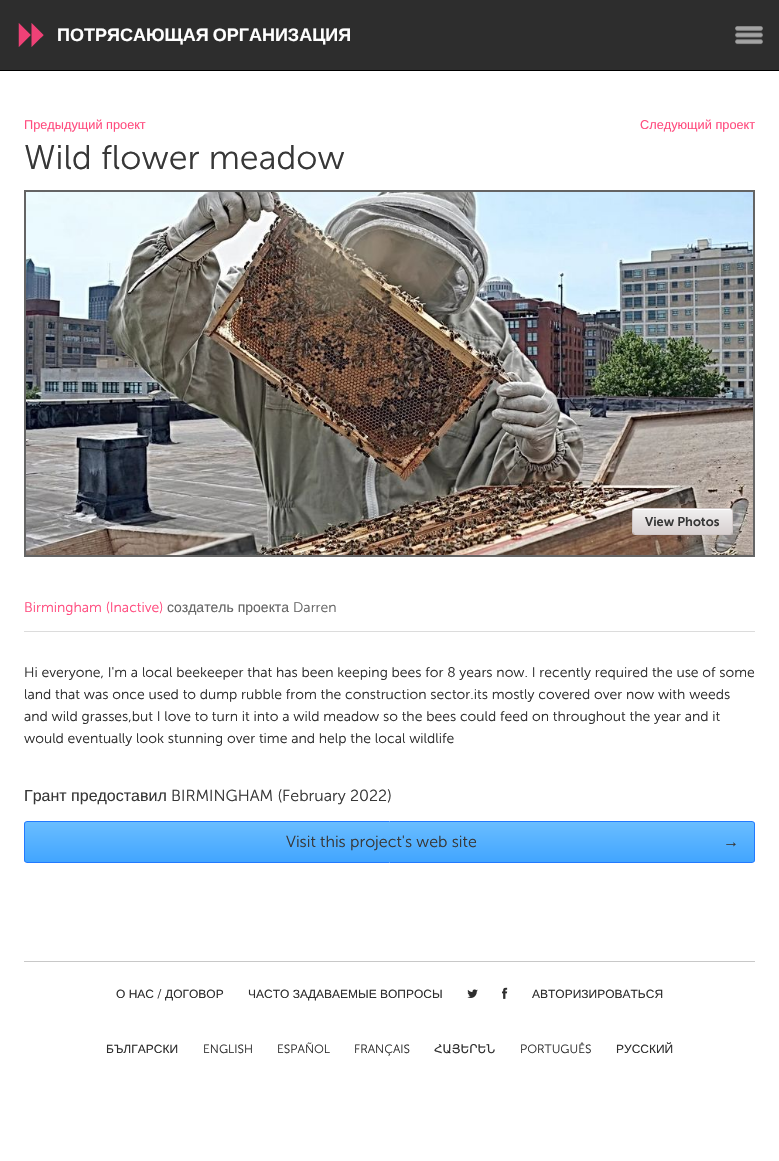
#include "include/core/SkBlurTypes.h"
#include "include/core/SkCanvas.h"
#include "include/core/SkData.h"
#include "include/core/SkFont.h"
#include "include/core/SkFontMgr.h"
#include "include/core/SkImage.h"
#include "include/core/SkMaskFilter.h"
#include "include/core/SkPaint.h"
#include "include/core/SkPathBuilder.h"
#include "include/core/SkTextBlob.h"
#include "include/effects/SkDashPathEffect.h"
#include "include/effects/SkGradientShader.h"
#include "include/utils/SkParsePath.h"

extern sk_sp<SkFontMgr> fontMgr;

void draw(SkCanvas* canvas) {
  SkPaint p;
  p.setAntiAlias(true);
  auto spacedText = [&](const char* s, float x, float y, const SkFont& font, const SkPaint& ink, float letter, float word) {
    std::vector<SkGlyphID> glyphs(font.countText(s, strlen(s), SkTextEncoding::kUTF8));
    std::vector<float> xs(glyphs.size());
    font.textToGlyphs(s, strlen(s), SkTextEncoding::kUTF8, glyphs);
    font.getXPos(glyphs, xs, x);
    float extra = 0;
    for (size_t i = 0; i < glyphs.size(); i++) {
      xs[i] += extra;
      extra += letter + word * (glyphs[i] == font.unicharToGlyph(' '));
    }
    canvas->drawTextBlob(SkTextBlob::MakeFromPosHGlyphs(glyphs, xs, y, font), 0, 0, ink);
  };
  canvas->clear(SK_ColorWHITE);
  p.setColor(SkColorSetRGB(45, 45, 45));
  canvas->drawRect(SkRect::MakeLTRB(0, 0, 779, 70), p);
  p.setColor(SK_ColorBLACK);
  canvas->drawRect(SkRect::MakeLTRB(0, 70, 779, 71), p);
  canvas->drawImageRect(SkImages::DeferredFromEncodedData(SkData::MakeFromFileName("images/1.png")), SkRect::MakeLTRB(18, 23, 44, 47), SkSamplingOptions());
  canvas->drawImageRect(SkImages::DeferredFromEncodedData(SkData::MakeFromFileName("images/2.png")), SkRect::MakeLTRB(735, 26, 763, 45), SkSamplingOptions());
  p.setColor(SkColorSetRGB(100, 100, 100));
  canvas->drawRect(SkRect::MakeLTRB(24, 190, 755, 557), p);
  canvas->drawImageRect(SkImages::DeferredFromEncodedData(SkData::MakeFromFileName("images/3.png")), SkRect::MakeLTRB(26, 192, 753, 555), SkSamplingOptions());
  {
    const SkColor colors[] = {SkColorSetRGB(240, 240, 240), SkColorSetRGB(216, 208, 208)};
    const float stops[] = {0, 1};
    const SkPoint ends[] = {{683, 509}, {683, 534}};
    p.setShader(SkGradientShader::MakeLinear(ends, colors, stops, 2, SkTileMode::kClamp));
    p.setAlpha(255);
  }
  canvas->drawRoundRect(SkRect::MakeLTRB(633, 509, 732, 534), 2, 2, p);
  p.setShader(nullptr);
  p.setColor(SK_ColorWHITE);
  canvas->drawPath(SkPathBuilder().moveTo(635, 510).lineTo(730, 510).cubicTo(731, 510, 732, 511, 732, 512).cubicTo(732, 511, 732, 509, 730, 509).lineTo(651, 509).cubicTo(649, 509, 633, 505, 633, 512).cubicTo(633, 511, 634, 510, 635, 510).close().detach(), p);
  p.setStyle(SkPaint::kStroke_Style);
  p.setStrokeWidth(1);
  p.setColor(SkColorSetRGB(209, 200, 200));
  canvas->drawRoundRect(SkRect::MakeLTRB(632.5f, 508.5f, 732.5f, 534.5f), 2.5f, 2.5f, p);
  p.setStyle(SkPaint::kFill_Style);
  p.setColor(SkColorSetRGB(220, 220, 220));
  canvas->drawRect(SkRect::MakeLTRB(24, 631, 755, 632), p);
  canvas->save();
  canvas->clipPath(SkPathBuilder().moveTo(27, 821).lineTo(752, 821).cubicTo(753.5f, 821, 755, 822.5f, 755, 824).lineTo(755, 860).cubicTo(755, 861.5f, 753.5f, 863, 752, 863).lineTo(27, 863).cubicTo(25.5f, 863, 24, 861.5f, 24, 860).lineTo(24, 824).cubicTo(24, 822.5f, 25.5f, 821, 27, 821).close().detach(), true);
  {
    const SkColor colors[] = {SkColorSetRGB(106, 189, 255), SkColorSetRGB(65, 165, 255)};
    const float stops[] = {0, 1};
    const SkPoint ends[] = {{390, 822}, {390, 862}};
    p.setShader(SkGradientShader::MakeLinear(ends, colors, stops, 2, SkTileMode::kClamp));
    p.setAlpha(255);
  }
  canvas->drawRect(SkRect::MakeLTRB(24, 822, 755, 862), p);
  canvas->restore();
  p.setStyle(SkPaint::kStroke_Style);
  p.setShader(nullptr);
  p.setColor(SkColorSetRGB(34, 122, 255));
  canvas->drawRoundRect(SkRect::MakeLTRB(24.5f, 821.5f, 754.5f, 862.5f), 2.5f, 2.5f, p);
  p.setStyle(SkPaint::kFill_Style);
  p.setColor(SkColorSetRGB(200, 200, 200));
  canvas->drawRect(SkRect::MakeLTRB(24, 961, 755, 962), p);
  canvas->drawImageRect(SkImages::DeferredFromEncodedData(SkData::MakeFromFileName("images/4.png")), SkRect::MakeLTRB(467, 989, 478, 998), SkSamplingOptions());
  canvas->drawImageRect(SkImages::DeferredFromEncodedData(SkData::MakeFromFileName("images/5.png")), SkRect::MakeLTRB(502, 987, 508, 999), SkSamplingOptions());
  SkFont font1(fontMgr->matchFamilyStyle("Liberation Sans", SkFontStyle::Bold()), 18);
  font1.setSubpixel(true);
  p.setColor(SK_ColorWHITE);
  spacedText("ПОТРЯСАЮЩАЯ ОРГАНИЗАЦИЯ", 57, 41, font1, p, 0, -1);
  SkFont font2(fontMgr->matchFamilyStyle("Liberation Sans", SkFontStyle::Normal()), 12.75f);
  font2.setSubpixel(true);
  p.setColor(SkColorSetRGB(255, 75, 126));
  canvas->drawString("Предыдущий проект", 24, 129, font2, p);
  canvas->drawString("Следующий проект", 640, 129, font2, p);
  SkFont font3(fontMgr->matchFamilyStyle("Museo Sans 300", SkFontStyle(300, SkFontStyle::kNormal_Width, SkFontStyle::kUpright_Slant)), 34);
  font3.setSubpixel(true);
  p.setColor(SkColorSetRGB(55, 55, 55));
  canvas->drawString("Wild flower meadow", 24, 169, font3, p);
  SkFont font4(fontMgr->matchFamilyStyle("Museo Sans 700", SkFontStyle(600, SkFontStyle::kNormal_Width, SkFontStyle::kUpright_Slant)), 12.75f);
  font4.setSubpixel(true);
  canvas->drawString("View Photos", 645, 526, font4, p);
  SkFont font5(fontMgr->matchFamilyStyle("Museo Sans 300", SkFontStyle(300, SkFontStyle::kNormal_Width, SkFontStyle::kUpright_Slant)), 14);
  font5.setSubpixel(true);
  p.setColor(SkColorSetRGB(255, 75, 126));
  canvas->drawString("Birmingham (Inactive)", 24, 612, font5, p);
  SkFont font6(fontMgr->matchFamilyStyle("Liberation Sans", SkFontStyle::Normal()), 14);
  font6.setSubpixel(true);
  p.setColor(SkColorSetRGB(100, 100, 100));
  canvas->drawString("создатель проекта", 167, 612, font6, p);
  canvas->drawString("Darren", 293, 612, font5, p);
  p.setColor(SkColorSetRGB(46, 46, 46));
  canvas->drawString("Hi everyone, I'm a local beekeeper that has been keeping bees for 8 years now. I recently required the use of some", 24, 677, font5, p);
  canvas->drawString("land that was once used to dump rubble from the construction sector.its mostly covered over now with weeds", 24, 699, font5, p);
  canvas->drawString("and wild grasses,but I love to turn it into a wild meadow so the bees could feed on throughout the year and it", 24, 721, font5, p);
  canvas->drawString("would eventually look stunning over time and help the local wildlife", 24, 743, font5, p);
  SkFont font7(fontMgr->matchFamilyStyle("Liberation Sans", SkFontStyle::Normal()), 16);
  font7.setSubpixel(true);
  p.setColor(SkColorSetRGB(55, 55, 55));
  canvas->drawString("Грант предоставил", 24, 801, font7, p);
  SkFont font8(fontMgr->matchFamilyStyle("Museo Sans 300", SkFontStyle(300, SkFontStyle::kNormal_Width, SkFontStyle::kUpright_Slant)), 16);
  font8.setSubpixel(true);
  canvas->drawString("BIRMINGHAM (February 2022)", 171, 801, font8, p);
  canvas->drawString("Visit this project's web site", 286, 847, font8, p);
  canvas->drawString("→", 723, 847, font7, p);
  SkFont font9(fontMgr->matchFamilyStyle("Liberation Sans", SkFontStyle::Normal()), 12);
  font9.setSubpixel(true);
  p.setColor(SkColorSetRGB(46, 46, 46));
  canvas->drawString("О НАС", 116, 998, font9, p);
  SkFont font10(fontMgr->matchFamilyStyle("Museo Sans 300", SkFontStyle(300, SkFontStyle::kNormal_Width, SkFontStyle::kUpright_Slant)), 12);
  font10.setSubpixel(true);
  canvas->drawString("/", 157, 998, font10, p);
  canvas->drawString("ДОГОВОР", 165, 998, font9, p);
  canvas->drawString("ЧАСТО ЗАДАВАЕМЫЕ ВОПРОСЫ", 248, 998, font9, p);
  canvas->drawString("АВТОРИЗИРОВАТЬСЯ", 532, 998, font9, p);
  canvas->drawString("БЪЛГАРСКИ", 106, 1053, font9, p);
  canvas->drawString("ENGLISH", 203, 1053, font10, p);
  canvas->drawString("ESPAÑOL", 277, 1053, font10, p);
  canvas->drawString("FRANÇAIS", 354, 1053, font10, p);
  SkFont font11(fontMgr->matchFamilyStyle("DejaVu Sans", SkFontStyle::Normal()), 12);
  font11.setSubpixel(true);
  canvas->drawString("ՀԱՅԵՐԵՆ", 434, 1053, font11, p);
  canvas->drawString("PORTUGUÊS", 520, 1053, font10, p);
  canvas->drawString("РУССКИЙ", 616, 1053, font9, p);
}
